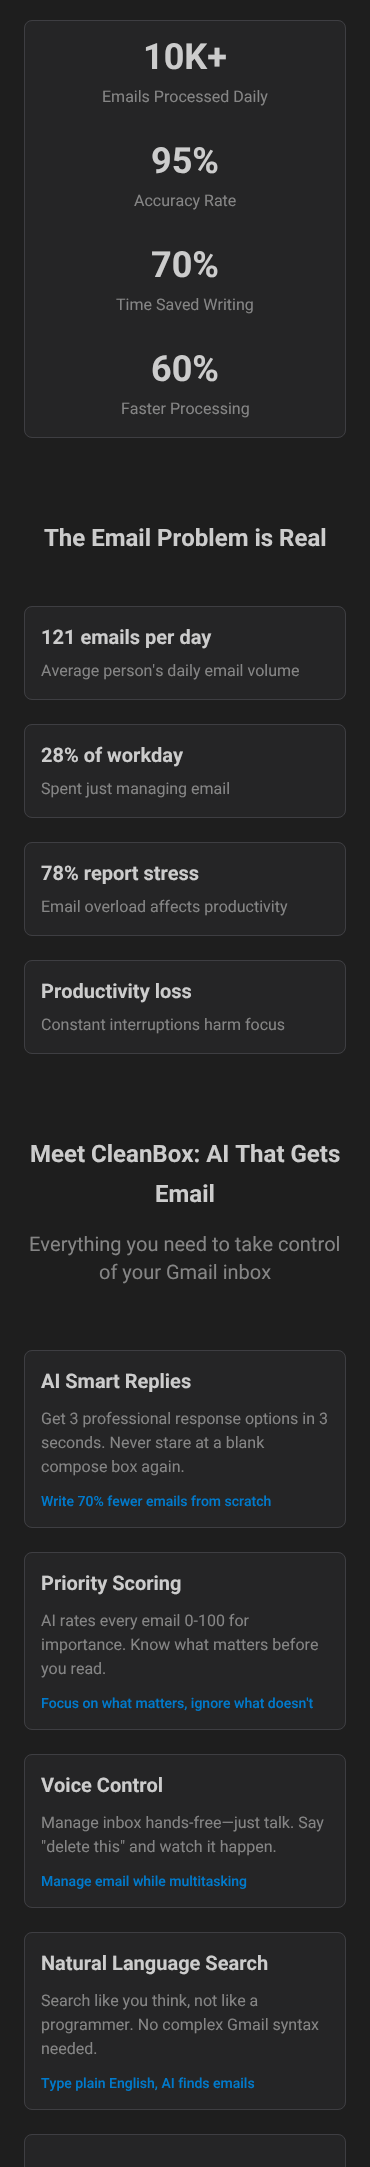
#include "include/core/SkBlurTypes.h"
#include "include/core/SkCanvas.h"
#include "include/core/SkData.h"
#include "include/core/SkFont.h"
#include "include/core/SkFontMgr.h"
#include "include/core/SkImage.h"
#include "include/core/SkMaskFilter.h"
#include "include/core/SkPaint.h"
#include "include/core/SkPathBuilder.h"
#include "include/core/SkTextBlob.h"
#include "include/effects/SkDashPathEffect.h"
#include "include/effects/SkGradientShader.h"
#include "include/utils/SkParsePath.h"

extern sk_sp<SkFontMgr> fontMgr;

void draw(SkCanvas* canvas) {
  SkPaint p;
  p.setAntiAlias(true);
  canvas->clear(SkColorSetRGB(30, 30, 30));
  p.setColor(SkColorSetRGB(37, 37, 38));
  canvas->drawRoundRect(SkRect::MakeLTRB(24.5f, 20.5f, 345.5f, 437.5f), 7.5f, 7.5f, p);
  p.setStyle(SkPaint::kStroke_Style);
  p.setStrokeWidth(1);
  p.setColor(SkColorSetRGB(62, 62, 66));
  canvas->drawRoundRect(SkRect::MakeLTRB(24.5f, 20.5f, 345.5f, 437.5f), 7.5f, 7.5f, p);
  p.setStyle(SkPaint::kFill_Style);
  p.setColor(SkColorSetRGB(37, 37, 38));
  canvas->drawRoundRect(SkRect::MakeLTRB(24.5f, 606.5f, 345.5f, 699.5f), 7.5f, 7.5f, p);
  p.setStyle(SkPaint::kStroke_Style);
  p.setColor(SkColorSetRGB(62, 62, 66));
  canvas->drawRoundRect(SkRect::MakeLTRB(24.5f, 606.5f, 345.5f, 699.5f), 7.5f, 7.5f, p);
  p.setStyle(SkPaint::kFill_Style);
  p.setColor(SkColorSetRGB(37, 37, 38));
  canvas->drawRoundRect(SkRect::MakeLTRB(24.5f, 724.5f, 345.5f, 817.5f), 7.5f, 7.5f, p);
  p.setStyle(SkPaint::kStroke_Style);
  p.setColor(SkColorSetRGB(62, 62, 66));
  canvas->drawRoundRect(SkRect::MakeLTRB(24.5f, 724.5f, 345.5f, 817.5f), 7.5f, 7.5f, p);
  p.setStyle(SkPaint::kFill_Style);
  p.setColor(SkColorSetRGB(37, 37, 38));
  canvas->drawRoundRect(SkRect::MakeLTRB(24.5f, 842.5f, 345.5f, 935.5f), 7.5f, 7.5f, p);
  p.setStyle(SkPaint::kStroke_Style);
  p.setColor(SkColorSetRGB(62, 62, 66));
  canvas->drawRoundRect(SkRect::MakeLTRB(24.5f, 842.5f, 345.5f, 935.5f), 7.5f, 7.5f, p);
  p.setStyle(SkPaint::kFill_Style);
  p.setColor(SkColorSetRGB(37, 37, 38));
  canvas->drawRoundRect(SkRect::MakeLTRB(24.5f, 960.5f, 345.5f, 1053.5f), 7.5f, 7.5f, p);
  p.setStyle(SkPaint::kStroke_Style);
  p.setColor(SkColorSetRGB(62, 62, 66));
  canvas->drawRoundRect(SkRect::MakeLTRB(24.5f, 960.5f, 345.5f, 1053.5f), 7.5f, 7.5f, p);
  p.setStyle(SkPaint::kFill_Style);
  p.setColor(SkColorSetRGB(37, 37, 38));
  canvas->drawRoundRect(SkRect::MakeLTRB(24.5f, 1350.5f, 345.5f, 1527.5f), 7.5f, 7.5f, p);
  p.setStyle(SkPaint::kStroke_Style);
  p.setColor(SkColorSetRGB(62, 62, 66));
  canvas->drawRoundRect(SkRect::MakeLTRB(24.5f, 1350.5f, 345.5f, 1527.5f), 7.5f, 7.5f, p);
  p.setStyle(SkPaint::kFill_Style);
  p.setColor(SkColorSetRGB(37, 37, 38));
  canvas->drawRoundRect(SkRect::MakeLTRB(24.5f, 1552.5f, 345.5f, 1729.5f), 7.5f, 7.5f, p);
  p.setStyle(SkPaint::kStroke_Style);
  p.setColor(SkColorSetRGB(62, 62, 66));
  canvas->drawRoundRect(SkRect::MakeLTRB(24.5f, 1552.5f, 345.5f, 1729.5f), 7.5f, 7.5f, p);
  p.setStyle(SkPaint::kFill_Style);
  p.setColor(SkColorSetRGB(37, 37, 38));
  canvas->drawRoundRect(SkRect::MakeLTRB(24.5f, 1754.5f, 345.5f, 1907.5f), 7.5f, 7.5f, p);
  p.setStyle(SkPaint::kStroke_Style);
  p.setColor(SkColorSetRGB(62, 62, 66));
  canvas->drawRoundRect(SkRect::MakeLTRB(24.5f, 1754.5f, 345.5f, 1907.5f), 7.5f, 7.5f, p);
  p.setStyle(SkPaint::kFill_Style);
  p.setColor(SkColorSetRGB(37, 37, 38));
  canvas->drawRoundRect(SkRect::MakeLTRB(24.5f, 1932.5f, 345.5f, 2109.5f), 7.5f, 7.5f, p);
  p.setStyle(SkPaint::kStroke_Style);
  p.setColor(SkColorSetRGB(62, 62, 66));
  canvas->drawRoundRect(SkRect::MakeLTRB(24.5f, 1932.5f, 345.5f, 2109.5f), 7.5f, 7.5f, p);
  p.setStyle(SkPaint::kFill_Style);
  p.setColor(SkColorSetRGB(37, 37, 38));
  canvas->drawRoundRect(SkRect::MakeLTRB(24.5f, 2134.5f, 345.5f, 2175.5f), 7.5f, 7.5f, p);
  p.setStyle(SkPaint::kStroke_Style);
  p.setColor(SkColorSetRGB(62, 62, 66));
  canvas->drawRoundRect(SkRect::MakeLTRB(24.5f, 2134.5f, 345.5f, 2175.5f), 7.5f, 7.5f, p);
  SkFont font1(fontMgr->matchFamilyStyle("Roboto", SkFontStyle::Bold()), 36);
  font1.setSubpixel(true);
  p.setStyle(SkPaint::kFill_Style);
  p.setColor(SkColorSetRGB(204, 204, 204));
  canvas->drawString("10K+", 143, 69, font1, p);
  SkFont font2(fontMgr->matchFamilyStyle("Roboto", SkFontStyle::Normal()), 16);
  font2.setSubpixel(true);
  p.setColor(SkColorSetRGB(133, 133, 133));
  canvas->drawString("Emails Processed Daily", 102, 102, font2, p);
  p.setColor(SkColorSetRGB(204, 204, 204));
  canvas->drawString("95%", 151, 173, font1, p);
  p.setColor(SkColorSetRGB(133, 133, 133));
  canvas->drawString("Accuracy Rate", 134, 206, font2, p);
  p.setColor(SkColorSetRGB(204, 204, 204));
  canvas->drawString("70%", 151, 277, font1, p);
  p.setColor(SkColorSetRGB(133, 133, 133));
  canvas->drawString("Time Saved Writing", 116, 310, font2, p);
  p.setColor(SkColorSetRGB(204, 204, 204));
  canvas->drawString("60%", 151, 381, font1, p);
  p.setColor(SkColorSetRGB(133, 133, 133));
  canvas->drawString("Faster Processing", 121, 414, font2, p);
  SkFont font3(fontMgr->matchFamilyStyle("Roboto", SkFontStyle::Bold()), 24);
  font3.setSubpixel(true);
  p.setColor(SkColorSetRGB(204, 204, 204));
  canvas->drawString("The Email Problem is Real", 44, 546, font3, p);
  SkFont font4(fontMgr->matchFamilyStyle("Roboto", SkFontStyle::Bold()), 20);
  font4.setSubpixel(true);
  canvas->drawString("121 emails per day", 41, 644, font4, p);
  p.setColor(SkColorSetRGB(133, 133, 133));
  canvas->drawString("Average person's daily email volume", 41, 676, font2, p);
  p.setColor(SkColorSetRGB(204, 204, 204));
  canvas->drawString("28% of workday", 41, 762, font4, p);
  p.setColor(SkColorSetRGB(133, 133, 133));
  canvas->drawString("Spent just managing email", 41, 794, font2, p);
  p.setColor(SkColorSetRGB(204, 204, 204));
  canvas->drawString("78% report stress", 41, 880, font4, p);
  p.setColor(SkColorSetRGB(133, 133, 133));
  canvas->drawString("Email overload affects productivity", 41, 912, font2, p);
  p.setColor(SkColorSetRGB(204, 204, 204));
  canvas->drawString("Productivity loss", 41, 998, font4, p);
  p.setColor(SkColorSetRGB(133, 133, 133));
  canvas->drawString("Constant interruptions harm focus", 41, 1030, font2, p);
  p.setColor(SkColorSetRGB(204, 204, 204));
  canvas->drawString("Meet CleanBox: AI That Gets", 30, 1162, font3, p);
  canvas->drawString("Email", 155, 1202, font3, p);
  SkFont font5(fontMgr->matchFamilyStyle("Roboto", SkFontStyle::Normal()), 20);
  font5.setSubpixel(true);
  p.setColor(SkColorSetRGB(133, 133, 133));
  canvas->drawString("Everything you need to take control", 29, 1251, font5, p);
  canvas->drawString("of your Gmail inbox", 99, 1279, font5, p);
  p.setColor(SkColorSetRGB(204, 204, 204));
  canvas->drawString("AI Smart Replies", 41, 1388, font4, p);
  p.setColor(SkColorSetRGB(133, 133, 133));
  canvas->drawString("Get 3 professional response options in 3", 41, 1424, font2, p);
  canvas->drawString("seconds. Never stare at a blank", 41, 1448, font2, p);
  canvas->drawString("compose box again.", 41, 1472, font2, p);
  SkFont font6(fontMgr->matchFamilyStyle("Roboto", SkFontStyle(500, SkFontStyle::kNormal_Width, SkFontStyle::kUpright_Slant)), 14);
  font6.setSubpixel(true);
  p.setColor(SkColorSetRGB(0, 122, 204));
  canvas->drawString("Write 70% fewer emails from scratch", 41, 1506, font6, p);
  p.setColor(SkColorSetRGB(204, 204, 204));
  canvas->drawString("Priority Scoring", 41, 1590, font4, p);
  p.setColor(SkColorSetRGB(133, 133, 133));
  canvas->drawString("AI rates every email 0-100 for", 41, 1626, font2, p);
  canvas->drawString("importance. Know what matters before", 41, 1650, font2, p);
  canvas->drawString("you read.", 41, 1674, font2, p);
  p.setColor(SkColorSetRGB(0, 122, 204));
  canvas->drawString("Focus on what matters, ignore what doesn't", 41, 1708, font6, p);
  p.setColor(SkColorSetRGB(204, 204, 204));
  canvas->drawString("Voice Control", 41, 1792, font4, p);
  p.setColor(SkColorSetRGB(133, 133, 133));
  canvas->drawString("Manage inbox hands-free—just talk. Say", 41, 1828, font2, p);
  canvas->drawString("\"delete this\" and watch it happen.", 41, 1852, font2, p);
  p.setColor(SkColorSetRGB(0, 122, 204));
  canvas->drawString("Manage email while multitasking", 41, 1886, font6, p);
  p.setColor(SkColorSetRGB(204, 204, 204));
  canvas->drawString("Natural Language Search", 41, 1970, font4, p);
  p.setColor(SkColorSetRGB(133, 133, 133));
  canvas->drawString("Search like you think, not like a", 41, 2006, font2, p);
  canvas->drawString("programmer. No complex Gmail syntax", 41, 2030, font2, p);
  canvas->drawString("needed.", 41, 2054, font2, p);
  p.setColor(SkColorSetRGB(0, 122, 204));
  canvas->drawString("Type plain English, AI finds emails", 41, 2088, font6, p);
}
